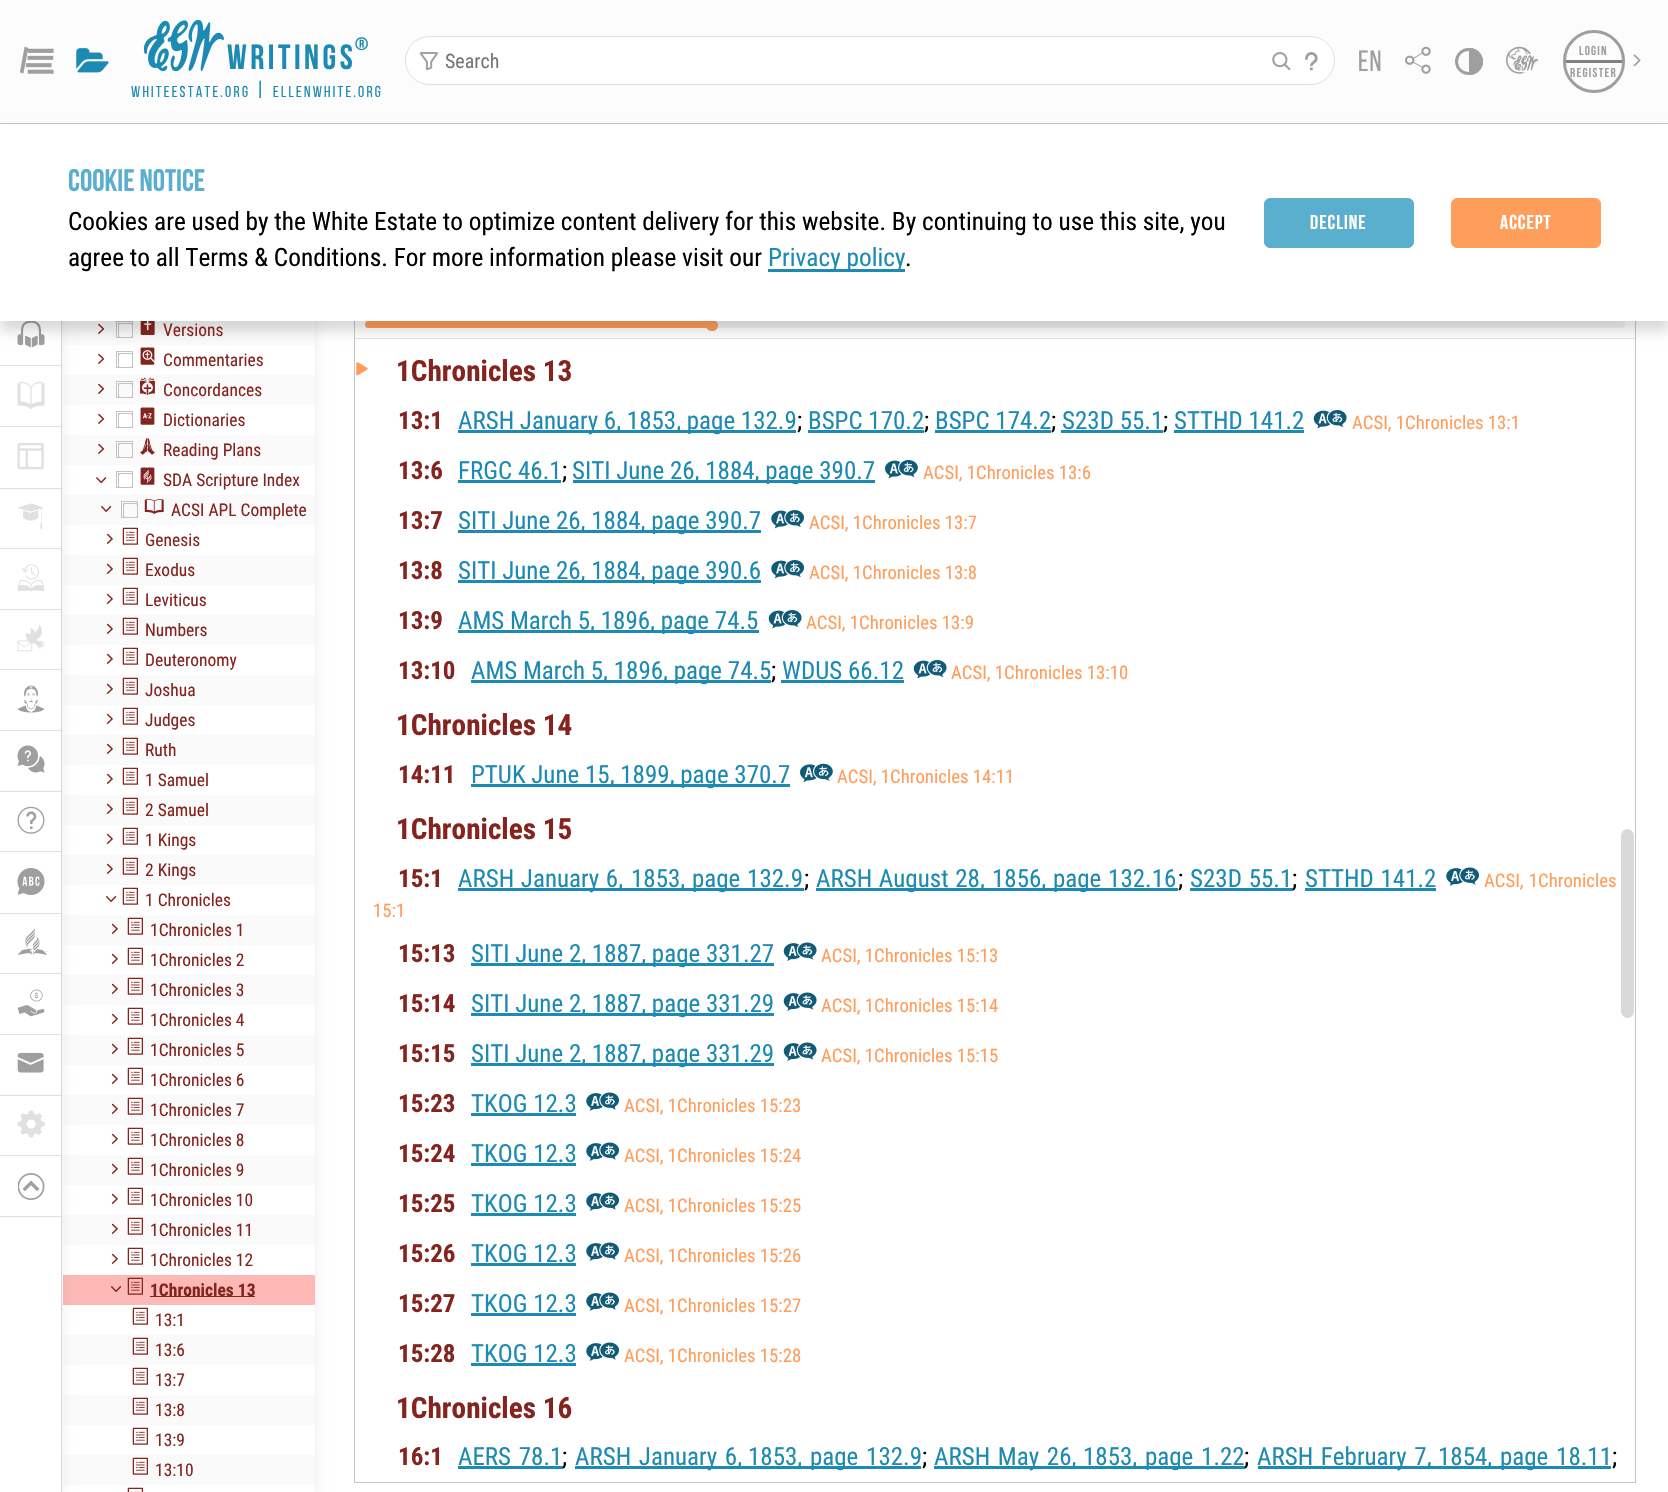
#include "include/core/SkBlurTypes.h"
#include "include/core/SkCanvas.h"
#include "include/core/SkData.h"
#include "include/core/SkFont.h"
#include "include/core/SkFontMgr.h"
#include "include/core/SkImage.h"
#include "include/core/SkMaskFilter.h"
#include "include/core/SkPaint.h"
#include "include/core/SkPathBuilder.h"
#include "include/core/SkTextBlob.h"
#include "include/effects/SkDashPathEffect.h"
#include "include/effects/SkGradientShader.h"
#include "include/utils/SkParsePath.h"

extern sk_sp<SkFontMgr> fontMgr;

void draw(SkCanvas* canvas) {
  SkPaint p;
  p.setAntiAlias(true);
  auto spacedText = [&](const char* s, float x, float y, const SkFont& font, const SkPaint& ink, float letter, float word) {
    std::vector<SkGlyphID> glyphs(font.countText(s, strlen(s), SkTextEncoding::kUTF8));
    std::vector<float> xs(glyphs.size());
    font.textToGlyphs(s, strlen(s), SkTextEncoding::kUTF8, glyphs);
    font.getXPos(glyphs, xs, x);
    float extra = 0;
    for (size_t i = 0; i < glyphs.size(); i++) {
      xs[i] += extra;
      extra += letter + word * (glyphs[i] == font.unicharToGlyph(' '));
    }
    canvas->drawTextBlob(SkTextBlob::MakeFromPosHGlyphs(glyphs, xs, y, font), 0, 0, ink);
  };
  canvas->clear(SK_ColorWHITE);
  p.setColor(SkColorSetARGB(20, 0, 0, 0));
  p.setMaskFilter(SkMaskFilter::MakeBlur(kNormal_SkBlurStyle, 6));
  canvas->drawRect(SkRect::MakeLTRB(61, 126, 315, 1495), p);
  p.setMaskFilter(nullptr);
  p.setColor(SK_ColorWHITE);
  canvas->drawRect(SkRect::MakeLTRB(62, 321, 315, 1492), p);
  p.setColor(SkColorSetRGB(224, 224, 224));
  canvas->drawRect(SkRect::MakeLTRB(61, 321, 62, 1492), p);
  p.setColor(SkColorSetRGB(250, 250, 250));
  canvas->drawRect(SkRect::MakeLTRB(63, 321, 315, 345), p);
  canvas->drawRect(SkRect::MakeLTRB(63, 375, 315, 405), p);
  canvas->drawRect(SkRect::MakeLTRB(63, 435, 315, 465), p);
  canvas->drawRect(SkRect::MakeLTRB(63, 495, 315, 525), p);
  canvas->drawRect(SkRect::MakeLTRB(63, 555, 315, 585), p);
  canvas->drawRect(SkRect::MakeLTRB(63, 615, 315, 645), p);
  canvas->drawRect(SkRect::MakeLTRB(63, 675, 315, 705), p);
  canvas->drawRect(SkRect::MakeLTRB(63, 735, 315, 765), p);
  canvas->drawRect(SkRect::MakeLTRB(63, 795, 315, 825), p);
  canvas->drawRect(SkRect::MakeLTRB(63, 855, 315, 885), p);
  canvas->drawRect(SkRect::MakeLTRB(63, 915, 315, 945), p);
  canvas->drawRect(SkRect::MakeLTRB(63, 975, 315, 1005), p);
  canvas->drawRect(SkRect::MakeLTRB(63, 1035, 315, 1065), p);
  canvas->drawRect(SkRect::MakeLTRB(63, 1095, 315, 1125), p);
  canvas->drawRect(SkRect::MakeLTRB(63, 1155, 315, 1185), p);
  canvas->drawRect(SkRect::MakeLTRB(63, 1215, 315, 1245), p);
  p.setColor(SkColorSetRGB(252, 185, 181));
  canvas->drawRect(SkRect::MakeLTRB(63, 1275, 315, 1305), p);
  p.setColor(SkColorSetRGB(250, 250, 250));
  canvas->drawRect(SkRect::MakeLTRB(63, 1335, 315, 1365), p);
  canvas->drawRect(SkRect::MakeLTRB(63, 1395, 315, 1425), p);
  canvas->drawRect(SkRect::MakeLTRB(63, 1455, 315, 1485), p);
  p.setColor(SkColorSetARGB(20, 0, 0, 0));
  p.setMaskFilter(SkMaskFilter::MakeBlur(kNormal_SkBlurStyle, 6));
  canvas->drawRect(SkRect::MakeLTRB(0, 126, 61, 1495), p);
  p.setMaskFilter(nullptr);
  p.setColor(SkColorSetRGB(252, 252, 252));
  canvas->drawRect(SkRect::MakeLTRB(0, 0, 1668, 123), p);
  p.setColor(SkColorSetRGB(196, 196, 196));
  canvas->drawRect(SkRect::MakeLTRB(0, 123, 1668, 124), p);
  canvas->drawImageRect(SkImages::DeferredFromEncodedData(SkData::MakeFromFileName("images/1.png")), SkRect::MakeLTRB(19, 46, 54, 74), SkSamplingOptions());
  canvas->drawImageRect(SkImages::DeferredFromEncodedData(SkData::MakeFromFileName("images/2.png")), SkRect::MakeLTRB(76, 48, 109, 73), SkSamplingOptions());
  canvas->drawImageRect(SkImages::DeferredFromEncodedData(SkData::MakeFromFileName("images/3.png")), SkRect::MakeLTRB(144, 20, 224, 71), SkSamplingOptions());
  p.setColor(SK_ColorWHITE);
  canvas->drawRoundRect(SkRect::MakeLTRB(405.5f, 36.5f, 1334.5f, 84.5f), 24, 24, p);
  p.setStyle(SkPaint::kStroke_Style);
  p.setStrokeWidth(1);
  p.setColor(SkColorSetRGB(224, 224, 224));
  canvas->drawRoundRect(SkRect::MakeLTRB(405.5f, 36.5f, 1334.5f, 84.5f), 24, 24, p);
  canvas->drawImageRect(SkImages::DeferredFromEncodedData(SkData::MakeFromFileName("images/4.png")), SkRect::MakeLTRB(419, 52, 438, 71), SkSamplingOptions());
  canvas->drawImageRect(SkImages::DeferredFromEncodedData(SkData::MakeFromFileName("images/5.png")), SkRect::MakeLTRB(1272, 52, 1291, 71), SkSamplingOptions());
  canvas->drawImageRect(SkImages::DeferredFromEncodedData(SkData::MakeFromFileName("images/6.png")), SkRect::MakeLTRB(1305, 52, 1318, 71), SkSamplingOptions());
  canvas->drawImageRect(SkImages::DeferredFromEncodedData(SkData::MakeFromFileName("images/7.png")), SkRect::MakeLTRB(1405, 46, 1431, 74), SkSamplingOptions());
  p.setStrokeWidth(3);
  p.setColor(SkColorSetRGB(159, 159, 159));
  canvas->drawRoundRect(SkRect::MakeLTRB(1456.5f, 49.5f, 1481.5f, 73.5f), 12, 12, p);
  p.setStyle(SkPaint::kFill_Style);
  canvas->drawPath(SkPathBuilder().moveTo(1469, 48).lineTo(1469.5f, 48).cubicTo(1477, 48, 1483, 54, 1483, 61.5f).cubicTo(1483, 69, 1477, 75, 1469.5f, 75).lineTo(1469, 75).close().detach(), p);
  canvas->drawImageRect(SkImages::DeferredFromEncodedData(SkData::MakeFromFileName("images/8.png")), SkRect::MakeLTRB(1506, 46, 1538, 74), SkSamplingOptions());
  p.setColor(SkColorSetRGB(128, 128, 128));
  canvas->drawRect(SkRect::MakeLTRB(1565, 60, 1623, 63), p);
  p.setStyle(SkPaint::kStroke_Style);
  p.setColor(SkColorSetRGB(159, 159, 159));
  canvas->drawRoundRect(SkRect::MakeLTRB(1564.5f, 31.5f, 1623.5f, 91.5f), 29.5f, 29.5f, p);
  canvas->drawImageRect(SkImages::DeferredFromEncodedData(SkData::MakeFromFileName("images/9.png")), SkRect::MakeLTRB(1633, 54, 1641, 67), SkSamplingOptions());
  p.setStyle(SkPaint::kFill_Style);
  p.setColor(SK_ColorWHITE);
  canvas->drawRect(SkRect::MakeLTRB(0, 321, 61, 1492), p);
  canvas->drawImageRect(SkImages::DeferredFromEncodedData(SkData::MakeFromFileName("images/10.png")), SkRect::MakeLTRB(17, 321, 45, 348), SkSamplingOptions());
  canvas->drawImageRect(SkImages::DeferredFromEncodedData(SkData::MakeFromFileName("images/25.png")), SkRect::MakeLTRB(98, 323, 105, 334), SkSamplingOptions());
  p.setStyle(SkPaint::kStroke_Style);
  p.setStrokeWidth(1);
  p.setColor(SkColorSetRGB(196, 196, 196));
  canvas->drawRect(SkRect::MakeLTRB(118.5f, 323.5f, 132.5f, 337.5f), p);
  canvas->drawRect(SkRect::MakeLTRB(116.5f, 321.5f, 132.5f, 337.5f), p);
  canvas->drawRoundRect(SkRect::MakeLTRB(118.5f, 323.5f, 132.5f, 337.5f), 2, 2, p);
  canvas->drawImageRect(SkImages::DeferredFromEncodedData(SkData::MakeFromFileName("images/26.png")), SkRect::MakeLTRB(140, 321, 155, 335), SkSamplingOptions());
  canvas->drawImageRect(SkImages::DeferredFromEncodedData(SkData::MakeFromFileName("images/28.png")), SkRect::MakeLTRB(140, 347, 155, 365), SkSamplingOptions());
  p.setStyle(SkPaint::kFill_Style);
  p.setColor(SkColorSetRGB(224, 224, 224));
  canvas->drawRect(SkRect::MakeLTRB(354, 338, 1636, 339), p);
  p.setColor(SkColorSetRGB(241, 241, 241));
  canvas->drawRoundRect(SkRect::MakeLTRB(365, 321, 1625, 328), 3.5f, 3.5f, p);
  p.setColor(SkColorSetRGB(255, 157, 91));
  canvas->drawRoundRect(SkRect::MakeLTRB(365, 321, 711, 328), 3.5f, 3.5f, p);
  canvas->drawRoundRect(SkRect::MakeLTRB(706, 320, 718, 331), 5.5f, 5.5f, p);
  canvas->drawImageRect(SkImages::DeferredFromEncodedData(SkData::MakeFromFileName("images/44.png")), SkRect::MakeLTRB(356, 362, 368, 376), SkSamplingOptions());
  p.setColor(SkColorSetRGB(28, 138, 179));
  canvas->drawRect(SkRect::MakeLTRB(458, 430, 796, 433), p);
  canvas->drawRect(SkRect::MakeLTRB(808, 430, 924, 433), p);
  canvas->drawRect(SkRect::MakeLTRB(935, 430, 1051, 433), p);
  canvas->drawRect(SkRect::MakeLTRB(1061, 430, 1163, 433), p);
  canvas->drawRect(SkRect::MakeLTRB(1174, 430, 1304, 433), p);
  canvas->drawImageRect(SkImages::DeferredFromEncodedData(SkData::MakeFromFileName("images/45.png")), SkRect::MakeLTRB(1313, 410, 1347, 429), SkSamplingOptions());
  canvas->drawRect(SkRect::MakeLTRB(458, 480, 561, 483), p);
  canvas->drawRect(SkRect::MakeLTRB(573, 480, 875, 483), p);
  canvas->drawImageRect(SkImages::DeferredFromEncodedData(SkData::MakeFromFileName("images/46.png")), SkRect::MakeLTRB(885, 460, 918, 479), SkSamplingOptions());
  canvas->drawRect(SkRect::MakeLTRB(458, 530, 761, 533), p);
  canvas->drawImageRect(SkImages::DeferredFromEncodedData(SkData::MakeFromFileName("images/47.png")), SkRect::MakeLTRB(771, 510, 805, 529), SkSamplingOptions());
  canvas->drawRect(SkRect::MakeLTRB(458, 580, 761, 583), p);
  canvas->drawImageRect(SkImages::DeferredFromEncodedData(SkData::MakeFromFileName("images/47.png")), SkRect::MakeLTRB(771, 560, 805, 579), SkSamplingOptions());
  canvas->drawRect(SkRect::MakeLTRB(458, 630, 759, 633), p);
  canvas->drawImageRect(SkImages::DeferredFromEncodedData(SkData::MakeFromFileName("images/45.png")), SkRect::MakeLTRB(768, 610, 802, 629), SkSamplingOptions());
  canvas->drawRect(SkRect::MakeLTRB(471, 680, 771, 683), p);
  canvas->drawRect(SkRect::MakeLTRB(781, 680, 904, 683), p);
  canvas->drawImageRect(SkImages::DeferredFromEncodedData(SkData::MakeFromFileName("images/45.png")), SkRect::MakeLTRB(913, 660, 947, 679), SkSamplingOptions());
  canvas->drawRect(SkRect::MakeLTRB(471, 784, 790, 787), p);
  canvas->drawImageRect(SkImages::DeferredFromEncodedData(SkData::MakeFromFileName("images/48.png")), SkRect::MakeLTRB(800, 763, 833, 782), SkSamplingOptions());
  canvas->drawRect(SkRect::MakeLTRB(458, 888, 804, 891), p);
  canvas->drawRect(SkRect::MakeLTRB(816, 888, 1178, 891), p);
  canvas->drawRect(SkRect::MakeLTRB(1190, 888, 1293, 891), p);
  canvas->drawRect(SkRect::MakeLTRB(1305, 888, 1436, 891), p);
  canvas->drawImageRect(SkImages::DeferredFromEncodedData(SkData::MakeFromFileName("images/49.png")), SkRect::MakeLTRB(1446, 867, 1480, 886), SkSamplingOptions());
  canvas->drawRect(SkRect::MakeLTRB(471, 963, 774, 966), p);
  canvas->drawImageRect(SkImages::DeferredFromEncodedData(SkData::MakeFromFileName("images/50.png")), SkRect::MakeLTRB(783, 942, 817, 961), SkSamplingOptions());
  canvas->drawRect(SkRect::MakeLTRB(471, 1013, 774, 1016), p);
  canvas->drawImageRect(SkImages::DeferredFromEncodedData(SkData::MakeFromFileName("images/50.png")), SkRect::MakeLTRB(783, 992, 817, 1011), SkSamplingOptions());
  canvas->drawRect(SkRect::MakeLTRB(471, 1063, 774, 1066), p);
  canvas->drawImageRect(SkImages::DeferredFromEncodedData(SkData::MakeFromFileName("images/50.png")), SkRect::MakeLTRB(783, 1042, 817, 1061), SkSamplingOptions());
  canvas->drawRect(SkRect::MakeLTRB(471, 1113, 576, 1116), p);
  canvas->drawImageRect(SkImages::DeferredFromEncodedData(SkData::MakeFromFileName("images/49.png")), SkRect::MakeLTRB(586, 1092, 620, 1111), SkSamplingOptions());
  canvas->drawRect(SkRect::MakeLTRB(471, 1163, 576, 1166), p);
  canvas->drawImageRect(SkImages::DeferredFromEncodedData(SkData::MakeFromFileName("images/49.png")), SkRect::MakeLTRB(586, 1142, 620, 1161), SkSamplingOptions());
  canvas->drawRect(SkRect::MakeLTRB(471, 1213, 576, 1216), p);
  canvas->drawImageRect(SkImages::DeferredFromEncodedData(SkData::MakeFromFileName("images/49.png")), SkRect::MakeLTRB(586, 1192, 620, 1211), SkSamplingOptions());
  canvas->drawRect(SkRect::MakeLTRB(471, 1263, 576, 1266), p);
  canvas->drawImageRect(SkImages::DeferredFromEncodedData(SkData::MakeFromFileName("images/49.png")), SkRect::MakeLTRB(586, 1242, 620, 1261), SkSamplingOptions());
  canvas->drawRect(SkRect::MakeLTRB(471, 1313, 576, 1316), p);
  canvas->drawImageRect(SkImages::DeferredFromEncodedData(SkData::MakeFromFileName("images/49.png")), SkRect::MakeLTRB(586, 1292, 620, 1311), SkSamplingOptions());
  canvas->drawRect(SkRect::MakeLTRB(471, 1363, 576, 1366), p);
  canvas->drawImageRect(SkImages::DeferredFromEncodedData(SkData::MakeFromFileName("images/49.png")), SkRect::MakeLTRB(586, 1342, 620, 1361), SkSamplingOptions());
  canvas->drawRect(SkRect::MakeLTRB(458, 1466, 563, 1469), p);
  canvas->drawRect(SkRect::MakeLTRB(575, 1466, 921, 1469), p);
  canvas->drawRect(SkRect::MakeLTRB(934, 1466, 1245, 1469), p);
  canvas->drawRect(SkRect::MakeLTRB(1258, 1466, 1611, 1469), p);
  p.setColor(SkColorSetRGB(217, 217, 217));
  canvas->drawRoundRect(SkRect::MakeLTRB(1621, 829, 1634, 1018), 6.5f, 6.5f, p);
  p.setStyle(SkPaint::kStroke_Style);
  p.setColor(SkColorSetRGB(196, 196, 196));
  canvas->drawRect(SkRect::MakeLTRB(354.5f, 224.5f, 1635.5f, 1482.5f), p);
  p.setStyle(SkPaint::kFill_Style);
  p.setColor(SkColorSetARGB(38, 0, 0, 0));
  p.setMaskFilter(SkMaskFilter::MakeBlur(kNormal_SkBlurStyle, 6));
  canvas->drawRect(SkRect::MakeLTRB(0, 134, 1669, 331), p);
  p.setMaskFilter(nullptr);
  p.setColor(SK_ColorWHITE);
  canvas->drawRect(SkRect::MakeLTRB(0, 124, 1668, 321), p);
  p.setColor(SkColorSetRGB(28, 138, 179));
  canvas->drawRect(SkRect::MakeLTRB(768, 269, 905, 272), p);
  p.setColor(SkColorSetRGB(90, 174, 206));
  canvas->drawRoundRect(SkRect::MakeLTRB(1264.5f, 198.5f, 1413.5f, 247.5f), 5.5f, 5.5f, p);
  p.setStyle(SkPaint::kStroke_Style);
  canvas->drawRoundRect(SkRect::MakeLTRB(1264.5f, 198.5f, 1413.5f, 247.5f), 5.5f, 5.5f, p);
  p.setStyle(SkPaint::kFill_Style);
  p.setColor(SkColorSetRGB(255, 157, 91));
  canvas->drawRoundRect(SkRect::MakeLTRB(1451.5f, 198.5f, 1600.5f, 247.5f), 5.5f, 5.5f, p);
  p.setStyle(SkPaint::kStroke_Style);
  canvas->drawRoundRect(SkRect::MakeLTRB(1451.5f, 198.5f, 1600.5f, 247.5f), 5.5f, 5.5f, p);
  p.setStyle(SkPaint::kFill_Style);
  p.setColor(SkColorSetRGB(224, 224, 224));
  canvas->drawRect(SkRect::MakeLTRB(0, 365, 61, 366), p);
  canvas->drawRect(SkRect::MakeLTRB(0, 426, 61, 427), p);
  canvas->drawImageRect(SkImages::DeferredFromEncodedData(SkData::MakeFromFileName("images/11.png")), SkRect::MakeLTRB(17, 381, 45, 409), SkSamplingOptions());
  canvas->drawRect(SkRect::MakeLTRB(0, 488, 61, 489), p);
  canvas->drawImageRect(SkImages::DeferredFromEncodedData(SkData::MakeFromFileName("images/12.png")), SkRect::MakeLTRB(17, 443, 44, 470), SkSamplingOptions());
  canvas->drawRect(SkRect::MakeLTRB(0, 548, 61, 549), p);
  canvas->drawImageRect(SkImages::DeferredFromEncodedData(SkData::MakeFromFileName("images/13.png")), SkRect::MakeLTRB(18, 503, 44, 529), SkSamplingOptions());
  canvas->drawRect(SkRect::MakeLTRB(0, 609, 61, 610), p);
  canvas->drawImageRect(SkImages::DeferredFromEncodedData(SkData::MakeFromFileName("images/14.png")), SkRect::MakeLTRB(17, 564, 45, 592), SkSamplingOptions());
  canvas->drawRect(SkRect::MakeLTRB(0, 669, 61, 670), p);
  canvas->drawImageRect(SkImages::DeferredFromEncodedData(SkData::MakeFromFileName("images/15.png")), SkRect::MakeLTRB(17, 624, 45, 652), SkSamplingOptions());
  canvas->drawRect(SkRect::MakeLTRB(0, 730, 61, 731), p);
  canvas->drawImageRect(SkImages::DeferredFromEncodedData(SkData::MakeFromFileName("images/16.png")), SkRect::MakeLTRB(17, 685, 45, 713), SkSamplingOptions());
  canvas->drawRect(SkRect::MakeLTRB(0, 791, 61, 792), p);
  canvas->drawImageRect(SkImages::DeferredFromEncodedData(SkData::MakeFromFileName("images/17.png")), SkRect::MakeLTRB(17, 745, 45, 773), SkSamplingOptions());
  canvas->drawRect(SkRect::MakeLTRB(0, 851, 61, 852), p);
  canvas->drawImageRect(SkImages::DeferredFromEncodedData(SkData::MakeFromFileName("images/18.png")), SkRect::MakeLTRB(17, 806, 45, 834), SkSamplingOptions());
  canvas->drawRect(SkRect::MakeLTRB(0, 913, 61, 914), p);
  canvas->drawImageRect(SkImages::DeferredFromEncodedData(SkData::MakeFromFileName("images/19.png")), SkRect::MakeLTRB(17, 868, 45, 895), SkSamplingOptions());
  canvas->drawRect(SkRect::MakeLTRB(0, 973, 61, 974), p);
  canvas->drawImageRect(SkImages::DeferredFromEncodedData(SkData::MakeFromFileName("images/20.png")), SkRect::MakeLTRB(17, 928, 48, 955), SkSamplingOptions());
  canvas->drawRect(SkRect::MakeLTRB(0, 1034, 61, 1035), p);
  canvas->drawImageRect(SkImages::DeferredFromEncodedData(SkData::MakeFromFileName("images/21.png")), SkRect::MakeLTRB(17, 989, 45, 1017), SkSamplingOptions());
  canvas->drawRect(SkRect::MakeLTRB(0, 1095, 61, 1096), p);
  canvas->drawImageRect(SkImages::DeferredFromEncodedData(SkData::MakeFromFileName("images/22.png")), SkRect::MakeLTRB(17, 1052, 44, 1073), SkSamplingOptions());
  canvas->drawRect(SkRect::MakeLTRB(0, 1155, 61, 1156), p);
  canvas->drawImageRect(SkImages::DeferredFromEncodedData(SkData::MakeFromFileName("images/23.png")), SkRect::MakeLTRB(17, 1110, 45, 1138), SkSamplingOptions());
  canvas->drawRect(SkRect::MakeLTRB(0, 1216, 61, 1217), p);
  canvas->drawImageRect(SkImages::DeferredFromEncodedData(SkData::MakeFromFileName("images/24.png")), SkRect::MakeLTRB(18, 1173, 45, 1200), SkSamplingOptions());
  canvas->drawImageRect(SkImages::DeferredFromEncodedData(SkData::MakeFromFileName("images/27.png")), SkRect::MakeLTRB(98, 353, 105, 364), SkSamplingOptions());
  p.setStyle(SkPaint::kStroke_Style);
  p.setColor(SkColorSetRGB(196, 196, 196));
  canvas->drawRect(SkRect::MakeLTRB(118.5f, 353.5f, 132.5f, 367.5f), p);
  canvas->drawRect(SkRect::MakeLTRB(116.5f, 351.5f, 132.5f, 367.5f), p);
  canvas->drawRoundRect(SkRect::MakeLTRB(118.5f, 353.5f, 132.5f, 367.5f), 2, 2, p);
  canvas->drawImageRect(SkImages::DeferredFromEncodedData(SkData::MakeFromFileName("images/25.png")), SkRect::MakeLTRB(98, 383, 105, 394), SkSamplingOptions());
  canvas->drawRect(SkRect::MakeLTRB(118.5f, 383.5f, 132.5f, 397.5f), p);
  canvas->drawRect(SkRect::MakeLTRB(116.5f, 381.5f, 132.5f, 397.5f), p);
  canvas->drawRoundRect(SkRect::MakeLTRB(118.5f, 383.5f, 132.5f, 397.5f), 2, 2, p);
  canvas->drawImageRect(SkImages::DeferredFromEncodedData(SkData::MakeFromFileName("images/29.png")), SkRect::MakeLTRB(140, 377, 155, 395), SkSamplingOptions());
  canvas->drawImageRect(SkImages::DeferredFromEncodedData(SkData::MakeFromFileName("images/27.png")), SkRect::MakeLTRB(98, 413, 105, 424), SkSamplingOptions());
  canvas->drawRect(SkRect::MakeLTRB(118.5f, 413.5f, 132.5f, 427.5f), p);
  canvas->drawRect(SkRect::MakeLTRB(116.5f, 411.5f, 132.5f, 427.5f), p);
  canvas->drawRoundRect(SkRect::MakeLTRB(118.5f, 413.5f, 132.5f, 427.5f), 2, 2, p);
  canvas->drawImageRect(SkImages::DeferredFromEncodedData(SkData::MakeFromFileName("images/30.png")), SkRect::MakeLTRB(140, 407, 155, 425), SkSamplingOptions());
  canvas->drawImageRect(SkImages::DeferredFromEncodedData(SkData::MakeFromFileName("images/25.png")), SkRect::MakeLTRB(98, 443, 105, 454), SkSamplingOptions());
  canvas->drawRect(SkRect::MakeLTRB(118.5f, 443.5f, 132.5f, 457.5f), p);
  canvas->drawRect(SkRect::MakeLTRB(116.5f, 441.5f, 132.5f, 457.5f), p);
  canvas->drawRoundRect(SkRect::MakeLTRB(118.5f, 443.5f, 132.5f, 457.5f), 2, 2, p);
  canvas->drawImageRect(SkImages::DeferredFromEncodedData(SkData::MakeFromFileName("images/31.png")), SkRect::MakeLTRB(140, 438, 155, 455), SkSamplingOptions());
  canvas->drawImageRect(SkImages::DeferredFromEncodedData(SkData::MakeFromFileName("images/32.png")), SkRect::MakeLTRB(96, 477, 107, 484), SkSamplingOptions());
  canvas->drawRect(SkRect::MakeLTRB(118.5f, 473.5f, 132.5f, 487.5f), p);
  canvas->drawRect(SkRect::MakeLTRB(116.5f, 471.5f, 132.5f, 487.5f), p);
  canvas->drawRoundRect(SkRect::MakeLTRB(118.5f, 473.5f, 132.5f, 487.5f), 2, 2, p);
  canvas->drawImageRect(SkImages::DeferredFromEncodedData(SkData::MakeFromFileName("images/33.png")), SkRect::MakeLTRB(140, 467, 155, 485), SkSamplingOptions());
  canvas->drawImageRect(SkImages::DeferredFromEncodedData(SkData::MakeFromFileName("images/34.png")), SkRect::MakeLTRB(101, 506, 112, 512), SkSamplingOptions());
  canvas->drawRect(SkRect::MakeLTRB(123.5f, 503.5f, 137.5f, 517.5f), p);
  canvas->drawRect(SkRect::MakeLTRB(121.5f, 501.5f, 137.5f, 517.5f), p);
  canvas->drawRoundRect(SkRect::MakeLTRB(123.5f, 503.5f, 137.5f, 517.5f), 2, 2, p);
  canvas->drawImageRect(SkImages::DeferredFromEncodedData(SkData::MakeFromFileName("images/35.png")), SkRect::MakeLTRB(144, 498, 164, 514), SkSamplingOptions());
  canvas->drawImageRect(SkImages::DeferredFromEncodedData(SkData::MakeFromFileName("images/36.png")), SkRect::MakeLTRB(106, 533, 113, 544), SkSamplingOptions());
  canvas->drawImageRect(SkImages::DeferredFromEncodedData(SkData::MakeFromFileName("images/37.png")), SkRect::MakeLTRB(122, 527, 138, 545), SkSamplingOptions());
  canvas->drawImageRect(SkImages::DeferredFromEncodedData(SkData::MakeFromFileName("images/38.png")), SkRect::MakeLTRB(106, 563, 113, 574), SkSamplingOptions());
  canvas->drawImageRect(SkImages::DeferredFromEncodedData(SkData::MakeFromFileName("images/39.png")), SkRect::MakeLTRB(122, 557, 138, 575), SkSamplingOptions());
  canvas->drawImageRect(SkImages::DeferredFromEncodedData(SkData::MakeFromFileName("images/36.png")), SkRect::MakeLTRB(106, 593, 113, 604), SkSamplingOptions());
  canvas->drawImageRect(SkImages::DeferredFromEncodedData(SkData::MakeFromFileName("images/37.png")), SkRect::MakeLTRB(122, 587, 138, 605), SkSamplingOptions());
  canvas->drawImageRect(SkImages::DeferredFromEncodedData(SkData::MakeFromFileName("images/38.png")), SkRect::MakeLTRB(106, 623, 113, 634), SkSamplingOptions());
  canvas->drawImageRect(SkImages::DeferredFromEncodedData(SkData::MakeFromFileName("images/39.png")), SkRect::MakeLTRB(122, 617, 138, 635), SkSamplingOptions());
  canvas->drawImageRect(SkImages::DeferredFromEncodedData(SkData::MakeFromFileName("images/36.png")), SkRect::MakeLTRB(106, 653, 113, 664), SkSamplingOptions());
  canvas->drawImageRect(SkImages::DeferredFromEncodedData(SkData::MakeFromFileName("images/37.png")), SkRect::MakeLTRB(122, 647, 138, 665), SkSamplingOptions());
  canvas->drawImageRect(SkImages::DeferredFromEncodedData(SkData::MakeFromFileName("images/38.png")), SkRect::MakeLTRB(106, 683, 113, 694), SkSamplingOptions());
  canvas->drawImageRect(SkImages::DeferredFromEncodedData(SkData::MakeFromFileName("images/39.png")), SkRect::MakeLTRB(122, 677, 138, 695), SkSamplingOptions());
  canvas->drawImageRect(SkImages::DeferredFromEncodedData(SkData::MakeFromFileName("images/36.png")), SkRect::MakeLTRB(106, 713, 113, 724), SkSamplingOptions());
  canvas->drawImageRect(SkImages::DeferredFromEncodedData(SkData::MakeFromFileName("images/37.png")), SkRect::MakeLTRB(122, 707, 138, 725), SkSamplingOptions());
  canvas->drawImageRect(SkImages::DeferredFromEncodedData(SkData::MakeFromFileName("images/38.png")), SkRect::MakeLTRB(106, 743, 113, 754), SkSamplingOptions());
  canvas->drawImageRect(SkImages::DeferredFromEncodedData(SkData::MakeFromFileName("images/39.png")), SkRect::MakeLTRB(122, 737, 138, 755), SkSamplingOptions());
  canvas->drawImageRect(SkImages::DeferredFromEncodedData(SkData::MakeFromFileName("images/36.png")), SkRect::MakeLTRB(106, 773, 113, 784), SkSamplingOptions());
  canvas->drawImageRect(SkImages::DeferredFromEncodedData(SkData::MakeFromFileName("images/37.png")), SkRect::MakeLTRB(122, 767, 138, 785), SkSamplingOptions());
  canvas->drawImageRect(SkImages::DeferredFromEncodedData(SkData::MakeFromFileName("images/38.png")), SkRect::MakeLTRB(106, 803, 113, 814), SkSamplingOptions());
  canvas->drawImageRect(SkImages::DeferredFromEncodedData(SkData::MakeFromFileName("images/39.png")), SkRect::MakeLTRB(122, 797, 138, 815), SkSamplingOptions());
  canvas->drawImageRect(SkImages::DeferredFromEncodedData(SkData::MakeFromFileName("images/36.png")), SkRect::MakeLTRB(106, 833, 113, 844), SkSamplingOptions());
  canvas->drawImageRect(SkImages::DeferredFromEncodedData(SkData::MakeFromFileName("images/37.png")), SkRect::MakeLTRB(122, 827, 138, 845), SkSamplingOptions());
  canvas->drawImageRect(SkImages::DeferredFromEncodedData(SkData::MakeFromFileName("images/38.png")), SkRect::MakeLTRB(106, 863, 113, 874), SkSamplingOptions());
  canvas->drawImageRect(SkImages::DeferredFromEncodedData(SkData::MakeFromFileName("images/39.png")), SkRect::MakeLTRB(122, 857, 138, 875), SkSamplingOptions());
  canvas->drawImageRect(SkImages::DeferredFromEncodedData(SkData::MakeFromFileName("images/40.png")), SkRect::MakeLTRB(106, 896, 117, 902), SkSamplingOptions());
  canvas->drawImageRect(SkImages::DeferredFromEncodedData(SkData::MakeFromFileName("images/37.png")), SkRect::MakeLTRB(122, 887, 138, 905), SkSamplingOptions());
  canvas->drawImageRect(SkImages::DeferredFromEncodedData(SkData::MakeFromFileName("images/38.png")), SkRect::MakeLTRB(111, 923, 118, 934), SkSamplingOptions());
  canvas->drawImageRect(SkImages::DeferredFromEncodedData(SkData::MakeFromFileName("images/39.png")), SkRect::MakeLTRB(127, 917, 143, 935), SkSamplingOptions());
  canvas->drawImageRect(SkImages::DeferredFromEncodedData(SkData::MakeFromFileName("images/36.png")), SkRect::MakeLTRB(111, 953, 118, 964), SkSamplingOptions());
  canvas->drawImageRect(SkImages::DeferredFromEncodedData(SkData::MakeFromFileName("images/37.png")), SkRect::MakeLTRB(127, 947, 143, 965), SkSamplingOptions());
  canvas->drawImageRect(SkImages::DeferredFromEncodedData(SkData::MakeFromFileName("images/38.png")), SkRect::MakeLTRB(111, 983, 118, 994), SkSamplingOptions());
  canvas->drawImageRect(SkImages::DeferredFromEncodedData(SkData::MakeFromFileName("images/39.png")), SkRect::MakeLTRB(127, 977, 143, 995), SkSamplingOptions());
  canvas->drawImageRect(SkImages::DeferredFromEncodedData(SkData::MakeFromFileName("images/36.png")), SkRect::MakeLTRB(111, 1013, 118, 1024), SkSamplingOptions());
  canvas->drawImageRect(SkImages::DeferredFromEncodedData(SkData::MakeFromFileName("images/37.png")), SkRect::MakeLTRB(127, 1007, 143, 1025), SkSamplingOptions());
  canvas->drawImageRect(SkImages::DeferredFromEncodedData(SkData::MakeFromFileName("images/38.png")), SkRect::MakeLTRB(111, 1043, 118, 1054), SkSamplingOptions());
  canvas->drawImageRect(SkImages::DeferredFromEncodedData(SkData::MakeFromFileName("images/39.png")), SkRect::MakeLTRB(127, 1037, 143, 1055), SkSamplingOptions());
  canvas->drawImageRect(SkImages::DeferredFromEncodedData(SkData::MakeFromFileName("images/36.png")), SkRect::MakeLTRB(111, 1073, 118, 1084), SkSamplingOptions());
  canvas->drawImageRect(SkImages::DeferredFromEncodedData(SkData::MakeFromFileName("images/37.png")), SkRect::MakeLTRB(127, 1067, 143, 1085), SkSamplingOptions());
  canvas->drawImageRect(SkImages::DeferredFromEncodedData(SkData::MakeFromFileName("images/38.png")), SkRect::MakeLTRB(111, 1103, 118, 1114), SkSamplingOptions());
  canvas->drawImageRect(SkImages::DeferredFromEncodedData(SkData::MakeFromFileName("images/39.png")), SkRect::MakeLTRB(127, 1097, 143, 1115), SkSamplingOptions());
  canvas->drawImageRect(SkImages::DeferredFromEncodedData(SkData::MakeFromFileName("images/36.png")), SkRect::MakeLTRB(111, 1133, 118, 1144), SkSamplingOptions());
  canvas->drawImageRect(SkImages::DeferredFromEncodedData(SkData::MakeFromFileName("images/37.png")), SkRect::MakeLTRB(127, 1127, 143, 1145), SkSamplingOptions());
  canvas->drawImageRect(SkImages::DeferredFromEncodedData(SkData::MakeFromFileName("images/38.png")), SkRect::MakeLTRB(111, 1163, 118, 1174), SkSamplingOptions());
  canvas->drawImageRect(SkImages::DeferredFromEncodedData(SkData::MakeFromFileName("images/39.png")), SkRect::MakeLTRB(127, 1157, 143, 1175), SkSamplingOptions());
  canvas->drawImageRect(SkImages::DeferredFromEncodedData(SkData::MakeFromFileName("images/36.png")), SkRect::MakeLTRB(111, 1193, 118, 1204), SkSamplingOptions());
  canvas->drawImageRect(SkImages::DeferredFromEncodedData(SkData::MakeFromFileName("images/37.png")), SkRect::MakeLTRB(127, 1187, 143, 1205), SkSamplingOptions());
  canvas->drawImageRect(SkImages::DeferredFromEncodedData(SkData::MakeFromFileName("images/38.png")), SkRect::MakeLTRB(111, 1223, 118, 1234), SkSamplingOptions());
  canvas->drawImageRect(SkImages::DeferredFromEncodedData(SkData::MakeFromFileName("images/39.png")), SkRect::MakeLTRB(127, 1217, 143, 1235), SkSamplingOptions());
  canvas->drawImageRect(SkImages::DeferredFromEncodedData(SkData::MakeFromFileName("images/36.png")), SkRect::MakeLTRB(111, 1253, 118, 1264), SkSamplingOptions());
  canvas->drawImageRect(SkImages::DeferredFromEncodedData(SkData::MakeFromFileName("images/37.png")), SkRect::MakeLTRB(127, 1247, 143, 1265), SkSamplingOptions());
  canvas->drawImageRect(SkImages::DeferredFromEncodedData(SkData::MakeFromFileName("images/41.png")), SkRect::MakeLTRB(111, 1286, 122, 1292), SkSamplingOptions());
  canvas->drawImageRect(SkImages::DeferredFromEncodedData(SkData::MakeFromFileName("images/42.png")), SkRect::MakeLTRB(127, 1277, 143, 1295), SkSamplingOptions());
  p.setStyle(SkPaint::kFill_Style);
  p.setColor(SkColorSetRGB(133, 36, 30));
  canvas->drawRect(SkRect::MakeLTRB(150, 1296, 255, 1297), p);
  canvas->drawImageRect(SkImages::DeferredFromEncodedData(SkData::MakeFromFileName("images/37.png")), SkRect::MakeLTRB(132, 1307, 148, 1325), SkSamplingOptions());
  canvas->drawImageRect(SkImages::DeferredFromEncodedData(SkData::MakeFromFileName("images/39.png")), SkRect::MakeLTRB(132, 1337, 148, 1355), SkSamplingOptions());
  canvas->drawImageRect(SkImages::DeferredFromEncodedData(SkData::MakeFromFileName("images/37.png")), SkRect::MakeLTRB(132, 1367, 148, 1385), SkSamplingOptions());
  canvas->drawImageRect(SkImages::DeferredFromEncodedData(SkData::MakeFromFileName("images/39.png")), SkRect::MakeLTRB(132, 1397, 148, 1415), SkSamplingOptions());
  canvas->drawImageRect(SkImages::DeferredFromEncodedData(SkData::MakeFromFileName("images/37.png")), SkRect::MakeLTRB(132, 1427, 148, 1445), SkSamplingOptions());
  canvas->drawImageRect(SkImages::DeferredFromEncodedData(SkData::MakeFromFileName("images/39.png")), SkRect::MakeLTRB(132, 1457, 148, 1475), SkSamplingOptions());
  canvas->drawImageRect(SkImages::DeferredFromEncodedData(SkData::MakeFromFileName("images/43.png")), SkRect::MakeLTRB(127, 1487, 143, 1492), SkSamplingOptions());
  SkFont font1(fontMgr->matchFamilyStyle("Bebas Neue", SkFontStyle::Bold()), 35);
  font1.setSubpixel(true);
  p.setColor(SkColorSetRGB(28, 138, 179));
  spacedText("writings", 227, 69, font1, p, 3.5f, 0);
  SkFont font2(fontMgr->matchFamilyStyle("Bebas Neue", SkFontStyle::Bold()), 18);
  font2.setSubpixel(true);
  spacedText("®", 355, 50, font2, p, 2, 0);
  SkFont font3(fontMgr->matchFamilyStyle("Bebas Neue", SkFontStyle::Normal()), 15.75f);
  font3.setSubpixel(true);
  spacedText("whiteestate.org", 131, 97, font3, p, 2.25f, 0);
  SkFont font4(fontMgr->matchFamilyStyle("Bebas Neue", SkFontStyle::Normal()), 22);
  font4.setSubpixel(true);
  spacedText("|", 256, 97, font4, p, 2.25f, 0);
  spacedText("ellenwhite.org", 273, 97, font3, p, 2.25f, 0);
  SkFont font5(fontMgr->matchFamilyStyle("Roboto Condensed", SkFontStyle::Normal()), 20);
  font5.setSubpixel(true);
  p.setColor(SkColorSetRGB(117, 117, 117));
  canvas->drawString("Search", 445, 68, font5, p);
  SkFont font6(fontMgr->matchFamilyStyle("Bebas Neue", SkFontStyle::Normal()), 29.25f);
  font6.setSubpixel(true);
  p.setColor(SkColorSetRGB(159, 159, 159));
  spacedText("en", 1358, 71, font6, p, 1, 0);
  SkFont font7(fontMgr->matchFamilyStyle("Bebas Neue", SkFontStyle::Bold()), 13);
  font7.setSubpixel(true);
  spacedText("logIn", 1579, 55, font7, p, 1.25f, 0);
  spacedText("Register", 1570, 77, font7, p, 1.25f, 0);
  SkFont font8(fontMgr->matchFamilyStyle("Bebas Neue", SkFontStyle::Bold()), 31);
  font8.setSubpixel(true);
  p.setColor(SkColorSetRGB(90, 174, 206));
  canvas->drawString("Cookie Notice", 68, 191, font8, p);
  SkFont font9(fontMgr->matchFamilyStyle("Roboto Condensed", SkFontStyle::Normal()), 25.3f);
  font9.setSubpixel(true);
  p.setColor(SK_ColorBLACK);
  canvas->drawString("Cookies are used by the White Estate to optimize content delivery for this website. By continuing to use this site, you", 68, 230, font9, p);
  canvas->drawString("agree to all Terms & Conditions. For more information please visit our", 68, 266, font9, p);
  p.setColor(SkColorSetRGB(28, 138, 179));
  canvas->drawString("Privacy policy", 768, 266, font9, p);
  p.setColor(SK_ColorBLACK);
  canvas->drawString(".", 905, 266, font9, p);
  SkFont font10(fontMgr->matchFamilyStyle("Bebas Neue", SkFontStyle::Bold()), 20);
  font10.setSubpixel(true);
  p.setColor(SK_ColorWHITE);
  spacedText("Decline", 1310, 229, font10, p, 1, 0);
  spacedText("Accept", 1500, 229, font10, p, 1, 0);
  SkFont font11(fontMgr->matchFamilyStyle("Roboto Condensed", SkFontStyle::Normal()), 17.5f);
  font11.setSubpixel(true);
  p.setColor(SkColorSetRGB(133, 36, 30));
  canvas->drawString("Versions", 163, 336, font11, p);
  canvas->drawString("Commentaries", 163, 366, font11, p);
  canvas->drawString("Concordances", 163, 396, font11, p);
  canvas->drawString("Dictionaries", 163, 426, font11, p);
  canvas->drawString("Reading Plans", 163, 456, font11, p);
  canvas->drawString("SDA Scripture Index", 163, 486, font11, p);
  canvas->drawString("ACSI APL Complete", 171, 516, font11, p);
  canvas->drawString("Genesis", 145, 546, font11, p);
  canvas->drawString("Exodus", 145, 576, font11, p);
  canvas->drawString("Leviticus", 145, 606, font11, p);
  canvas->drawString("Numbers", 145, 636, font11, p);
  canvas->drawString("Deuteronomy", 145, 666, font11, p);
  canvas->drawString("Joshua", 145, 696, font11, p);
  canvas->drawString("Judges", 145, 726, font11, p);
  canvas->drawString("Ruth", 145, 756, font11, p);
  canvas->drawString("1 Samuel", 145, 786, font11, p);
  canvas->drawString("2 Samuel", 145, 816, font11, p);
  canvas->drawString("1 Kings", 145, 846, font11, p);
  canvas->drawString("2 Kings", 145, 876, font11, p);
  canvas->drawString("1 Chronicles", 145, 906, font11, p);
  canvas->drawString("1Chronicles 1", 150, 936, font11, p);
  canvas->drawString("1Chronicles 2", 150, 966, font11, p);
  canvas->drawString("1Chronicles 3", 150, 996, font11, p);
  canvas->drawString("1Chronicles 4", 150, 1026, font11, p);
  canvas->drawString("1Chronicles 5", 150, 1056, font11, p);
  canvas->drawString("1Chronicles 6", 150, 1086, font11, p);
  canvas->drawString("1Chronicles 7", 150, 1116, font11, p);
  canvas->drawString("1Chronicles 8", 150, 1146, font11, p);
  canvas->drawString("1Chronicles 9", 150, 1176, font11, p);
  canvas->drawString("1Chronicles 10", 150, 1206, font11, p);
  canvas->drawString("1Chronicles 11", 150, 1236, font11, p);
  canvas->drawString("1Chronicles 12", 150, 1266, font11, p);
  SkFont font12(fontMgr->matchFamilyStyle("Roboto Condensed", SkFontStyle::Bold()), 17.5f);
  font12.setSubpixel(true);
  canvas->drawString("1Chronicles 13", 150, 1296, font12, p);
  canvas->drawString("13:1", 155, 1326, font11, p);
  canvas->drawString("13:6", 155, 1356, font11, p);
  canvas->drawString("13:7", 155, 1386, font11, p);
  canvas->drawString("13:8", 155, 1416, font11, p);
  canvas->drawString("13:9", 155, 1446, font11, p);
  canvas->drawString("13:10", 155, 1476, font11, p);
  SkFont font13(fontMgr->matchFamilyStyle("Roboto Condensed", SkFontStyle::Bold()), 29.25f);
  font13.setSubpixel(true);
  canvas->drawString("1Chronicles 13", 396, 381, font13, p);
  SkFont font14(fontMgr->matchFamilyStyle("Roboto Condensed", SkFontStyle::Bold()), 25);
  font14.setSubpixel(true);
  canvas->drawString("13:1", 398, 429, font14, p);
  SkFont font15(fontMgr->matchFamilyStyle("Roboto Condensed", SkFontStyle::Normal()), 25);
  font15.setSubpixel(true);
  p.setColor(SkColorSetRGB(28, 138, 179));
  canvas->drawString("ARSH January 6, 1853, page 132.9", 458, 429, font15, p);
  p.setColor(SK_ColorBLACK);
  canvas->drawString(";", 797, 429, font15, p);
  p.setColor(SkColorSetRGB(28, 138, 179));
  canvas->drawString("BSPC 170.2", 808, 429, font15, p);
  p.setColor(SK_ColorBLACK);
  canvas->drawString(";", 924, 429, font15, p);
  p.setColor(SkColorSetRGB(28, 138, 179));
  canvas->drawString("BSPC 174.2", 935, 429, font15, p);
  p.setColor(SK_ColorBLACK);
  canvas->drawString(";", 1051, 429, font15, p);
  p.setColor(SkColorSetRGB(28, 138, 179));
  canvas->drawString("S23D 55.1", 1062, 429, font15, p);
  p.setColor(SK_ColorBLACK);
  canvas->drawString(";", 1163, 429, font15, p);
  p.setColor(SkColorSetRGB(28, 138, 179));
  canvas->drawString("STTHD 141.2", 1174, 429, font15, p);
  SkFont font16(fontMgr->matchFamilyStyle("Roboto Condensed", SkFontStyle::Normal()), 18.75f);
  font16.setSubpixel(true);
  p.setColor(SkColorSetRGB(255, 157, 91));
  canvas->drawString("ACSI, 1Chronicles 13:1", 1352, 429, font16, p);
  p.setColor(SkColorSetRGB(133, 36, 30));
  canvas->drawString("13:6", 398, 479, font14, p);
  p.setColor(SkColorSetRGB(28, 138, 179));
  canvas->drawString("FRGC 46.1", 458, 479, font15, p);
  p.setColor(SK_ColorBLACK);
  canvas->drawString(";", 562, 479, font15, p);
  p.setColor(SkColorSetRGB(28, 138, 179));
  canvas->drawString("SITI June 26, 1884, page 390.7", 572, 479, font15, p);
  p.setColor(SkColorSetRGB(255, 157, 91));
  canvas->drawString("ACSI, 1Chronicles 13:6", 923, 479, font16, p);
  p.setColor(SkColorSetRGB(133, 36, 30));
  canvas->drawString("13:7", 398, 529, font14, p);
  p.setColor(SkColorSetRGB(28, 138, 179));
  canvas->drawString("SITI June 26, 1884, page 390.7", 458, 529, font15, p);
  p.setColor(SkColorSetRGB(255, 157, 91));
  canvas->drawString("ACSI, 1Chronicles 13:7", 809, 529, font16, p);
  p.setColor(SkColorSetRGB(133, 36, 30));
  canvas->drawString("13:8", 398, 579, font14, p);
  p.setColor(SkColorSetRGB(28, 138, 179));
  canvas->drawString("SITI June 26, 1884, page 390.6", 458, 579, font15, p);
  p.setColor(SkColorSetRGB(255, 157, 91));
  canvas->drawString("ACSI, 1Chronicles 13:8", 809, 579, font16, p);
  p.setColor(SkColorSetRGB(133, 36, 30));
  canvas->drawString("13:9", 398, 629, font14, p);
  p.setColor(SkColorSetRGB(28, 138, 179));
  canvas->drawString("AMS March 5, 1896, page 74.5", 458, 629, font15, p);
  p.setColor(SkColorSetRGB(255, 157, 91));
  canvas->drawString("ACSI, 1Chronicles 13:9", 806, 629, font16, p);
  p.setColor(SkColorSetRGB(133, 36, 30));
  canvas->drawString("13:10", 398, 679, font14, p);
  p.setColor(SkColorSetRGB(28, 138, 179));
  canvas->drawString("AMS March 5, 1896, page 74.5", 471, 679, font15, p);
  p.setColor(SK_ColorBLACK);
  canvas->drawString(";", 771, 679, font15, p);
  p.setColor(SkColorSetRGB(28, 138, 179));
  canvas->drawString("WDUS 66.12", 782, 679, font15, p);
  p.setColor(SkColorSetRGB(255, 157, 91));
  canvas->drawString("ACSI, 1Chronicles 13:10", 951, 679, font16, p);
  p.setColor(SkColorSetRGB(133, 36, 30));
  canvas->drawString("1Chronicles 14", 396, 735, font13, p);
  canvas->drawString("14:11", 398, 783, font14, p);
  p.setColor(SkColorSetRGB(28, 138, 179));
  canvas->drawString("PTUK June 15, 1899, page 370.7", 471, 783, font15, p);
  p.setColor(SkColorSetRGB(255, 157, 91));
  canvas->drawString("ACSI, 1Chronicles 14:11", 837, 783, font16, p);
  p.setColor(SkColorSetRGB(133, 36, 30));
  canvas->drawString("1Chronicles 15", 396, 839, font13, p);
  canvas->drawString("15:1", 398, 887, font14, p);
  p.setColor(SkColorSetRGB(28, 138, 179));
  spacedText("ARSH January 6,", 458, 887, font15, p, 0, 1);
  spacedText("1853, page 132.9", 631, 887, font15, p, 0, 1);
  p.setColor(SK_ColorBLACK);
  canvas->drawString(";", 804, 887, font15, p);
  p.setColor(SkColorSetRGB(28, 138, 179));
  spacedText("ARSH August 28,", 816, 887, font15, p, 0, 1);
  spacedText("1856, page 132.16", 992, 887, font15, p, 0, 1);
  p.setColor(SK_ColorBLACK);
  canvas->drawString(";", 1178, 887, font15, p);
  p.setColor(SkColorSetRGB(28, 138, 179));
  spacedText("S23D 55.1", 1190, 887, font15, p, 0, 1);
  p.setColor(SK_ColorBLACK);
  canvas->drawString(";", 1292, 887, font15, p);
  p.setColor(SkColorSetRGB(28, 138, 179));
  spacedText("STTHD 141.2", 1305, 887, font15, p, 0, 1);
  p.setColor(SkColorSetRGB(255, 157, 91));
  spacedText("ACSI, 1Chronicles", 1484, 887, font16, p, 0, 1);
  canvas->drawString("15:1", 373, 917, font16, p);
  p.setColor(SkColorSetRGB(133, 36, 30));
  canvas->drawString("15:13", 398, 962, font14, p);
  p.setColor(SkColorSetRGB(28, 138, 179));
  canvas->drawString("SITI June 2, 1887, page 331.27", 471, 962, font15, p);
  p.setColor(SkColorSetRGB(255, 157, 91));
  canvas->drawString("ACSI, 1Chronicles 15:13", 821, 962, font16, p);
  p.setColor(SkColorSetRGB(133, 36, 30));
  canvas->drawString("15:14", 398, 1012, font14, p);
  p.setColor(SkColorSetRGB(28, 138, 179));
  canvas->drawString("SITI June 2, 1887, page 331.29", 471, 1012, font15, p);
  p.setColor(SkColorSetRGB(255, 157, 91));
  canvas->drawString("ACSI, 1Chronicles 15:14", 821, 1012, font16, p);
  p.setColor(SkColorSetRGB(133, 36, 30));
  canvas->drawString("15:15", 398, 1062, font14, p);
  p.setColor(SkColorSetRGB(28, 138, 179));
  canvas->drawString("SITI June 2, 1887, page 331.29", 471, 1062, font15, p);
  p.setColor(SkColorSetRGB(255, 157, 91));
  canvas->drawString("ACSI, 1Chronicles 15:15", 821, 1062, font16, p);
  p.setColor(SkColorSetRGB(133, 36, 30));
  canvas->drawString("15:23", 398, 1112, font14, p);
  p.setColor(SkColorSetRGB(28, 138, 179));
  canvas->drawString("TKOG 12.3", 471, 1112, font15, p);
  p.setColor(SkColorSetRGB(255, 157, 91));
  canvas->drawString("ACSI, 1Chronicles 15:23", 624, 1112, font16, p);
  p.setColor(SkColorSetRGB(133, 36, 30));
  canvas->drawString("15:24", 398, 1162, font14, p);
  p.setColor(SkColorSetRGB(28, 138, 179));
  canvas->drawString("TKOG 12.3", 471, 1162, font15, p);
  p.setColor(SkColorSetRGB(255, 157, 91));
  canvas->drawString("ACSI, 1Chronicles 15:24", 624, 1162, font16, p);
  p.setColor(SkColorSetRGB(133, 36, 30));
  canvas->drawString("15:25", 398, 1212, font14, p);
  p.setColor(SkColorSetRGB(28, 138, 179));
  canvas->drawString("TKOG 12.3", 471, 1212, font15, p);
  p.setColor(SkColorSetRGB(255, 157, 91));
  canvas->drawString("ACSI, 1Chronicles 15:25", 624, 1212, font16, p);
  p.setColor(SkColorSetRGB(133, 36, 30));
  canvas->drawString("15:26", 398, 1262, font14, p);
  p.setColor(SkColorSetRGB(28, 138, 179));
  canvas->drawString("TKOG 12.3", 471, 1262, font15, p);
  p.setColor(SkColorSetRGB(255, 157, 91));
  canvas->drawString("ACSI, 1Chronicles 15:26", 624, 1262, font16, p);
  p.setColor(SkColorSetRGB(133, 36, 30));
  canvas->drawString("15:27", 398, 1312, font14, p);
  p.setColor(SkColorSetRGB(28, 138, 179));
  canvas->drawString("TKOG 12.3", 471, 1312, font15, p);
  p.setColor(SkColorSetRGB(255, 157, 91));
  canvas->drawString("ACSI, 1Chronicles 15:27", 624, 1312, font16, p);
  p.setColor(SkColorSetRGB(133, 36, 30));
  canvas->drawString("15:28", 398, 1362, font14, p);
  p.setColor(SkColorSetRGB(28, 138, 179));
  canvas->drawString("TKOG 12.3", 471, 1362, font15, p);
  p.setColor(SkColorSetRGB(255, 157, 91));
  canvas->drawString("ACSI, 1Chronicles 15:28", 624, 1362, font16, p);
  p.setColor(SkColorSetRGB(133, 36, 30));
  canvas->drawString("1Chronicles 16", 396, 1418, font13, p);
  canvas->drawString("16:1", 398, 1465, font14, p);
  p.setColor(SkColorSetRGB(28, 138, 179));
  spacedText("AERS 78.1", 458, 1465, font15, p, 0, 2);
  p.setColor(SK_ColorBLACK);
  canvas->drawString(";", 562, 1465, font15, p);
  p.setColor(SkColorSetRGB(28, 138, 179));
  spacedText("ARSH January 6,", 575, 1465, font15, p, 0, 2);
  spacedText("1853, page 132.9", 748, 1465, font15, p, 0, 2);
  p.setColor(SK_ColorBLACK);
  canvas->drawString(";", 922, 1465, font15, p);
  p.setColor(SkColorSetRGB(28, 138, 179));
  spacedText("ARSH May 26,", 934, 1465, font15, p, 0, 2);
  spacedText("1853, page 1.22", 1083, 1465, font15, p, 0, 2);
  p.setColor(SK_ColorBLACK);
  canvas->drawString(";", 1244, 1465, font15, p);
  p.setColor(SkColorSetRGB(28, 138, 179));
  spacedText("ARSH February 7,", 1257, 1465, font15, p, 0, 2);
  spacedText("1854, page 18.11", 1438, 1465, font15, p, 0, 2);
  p.setColor(SK_ColorBLACK);
  canvas->drawString(";", 1612, 1465, font15, p);
}
